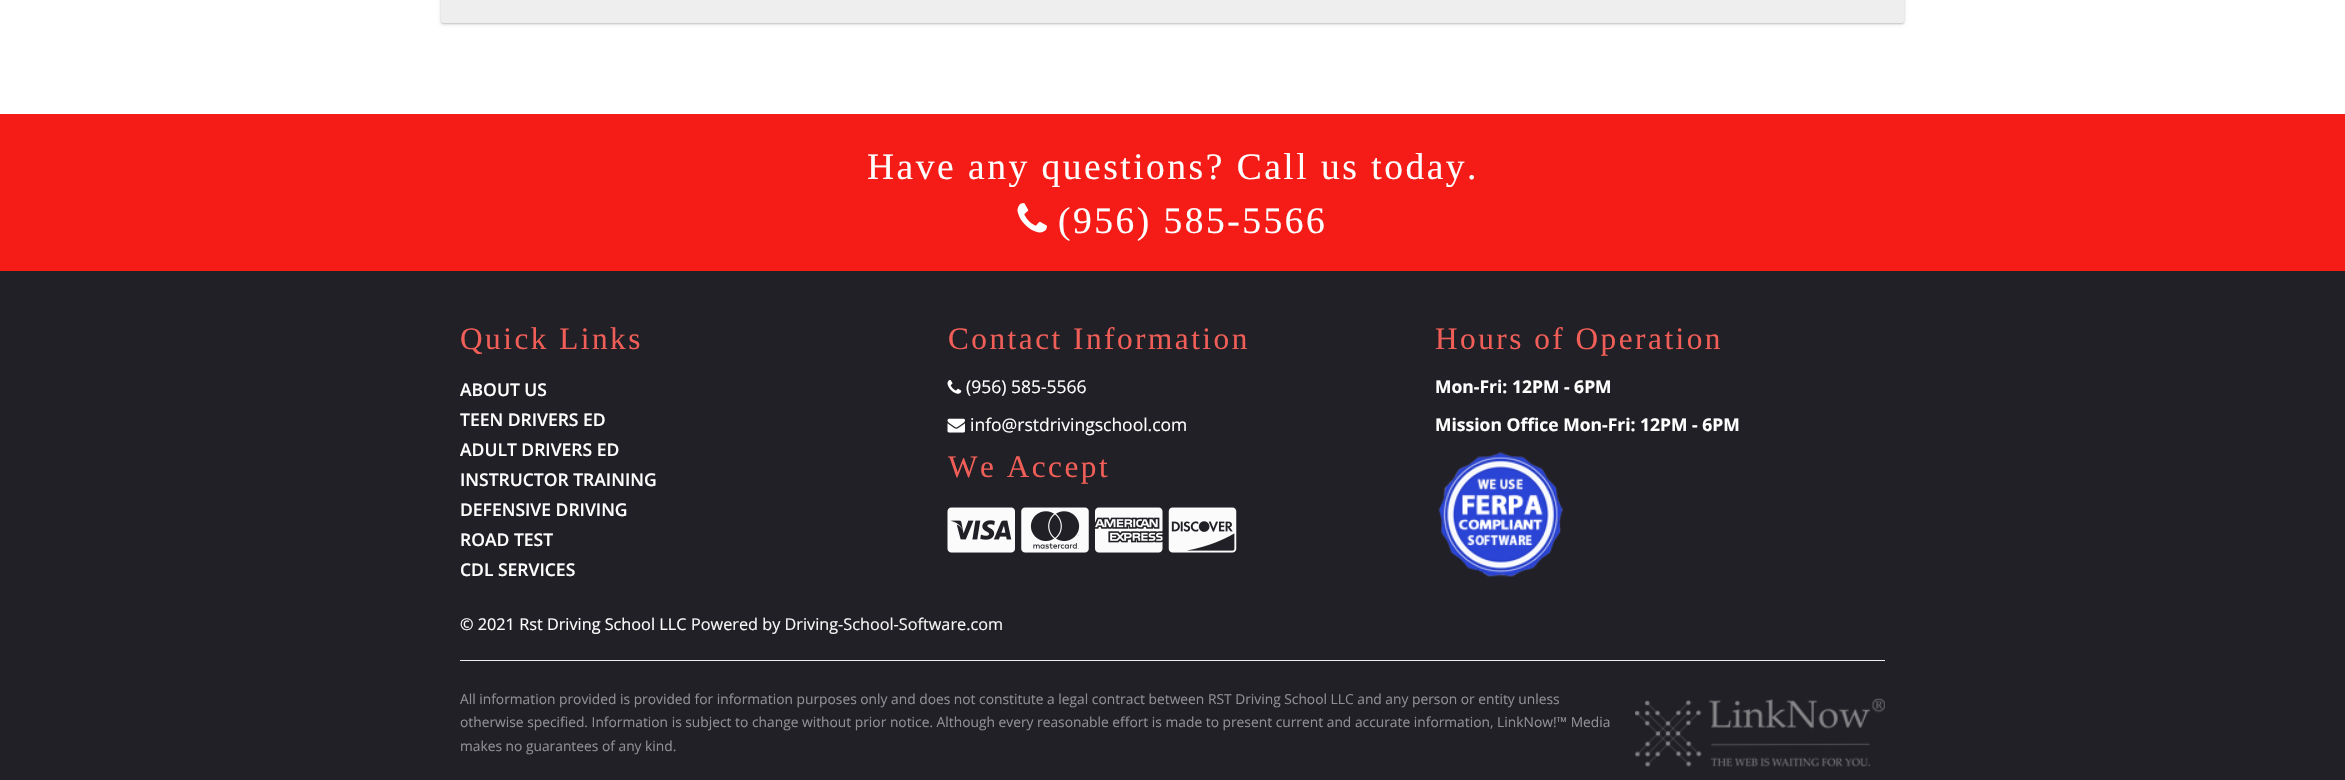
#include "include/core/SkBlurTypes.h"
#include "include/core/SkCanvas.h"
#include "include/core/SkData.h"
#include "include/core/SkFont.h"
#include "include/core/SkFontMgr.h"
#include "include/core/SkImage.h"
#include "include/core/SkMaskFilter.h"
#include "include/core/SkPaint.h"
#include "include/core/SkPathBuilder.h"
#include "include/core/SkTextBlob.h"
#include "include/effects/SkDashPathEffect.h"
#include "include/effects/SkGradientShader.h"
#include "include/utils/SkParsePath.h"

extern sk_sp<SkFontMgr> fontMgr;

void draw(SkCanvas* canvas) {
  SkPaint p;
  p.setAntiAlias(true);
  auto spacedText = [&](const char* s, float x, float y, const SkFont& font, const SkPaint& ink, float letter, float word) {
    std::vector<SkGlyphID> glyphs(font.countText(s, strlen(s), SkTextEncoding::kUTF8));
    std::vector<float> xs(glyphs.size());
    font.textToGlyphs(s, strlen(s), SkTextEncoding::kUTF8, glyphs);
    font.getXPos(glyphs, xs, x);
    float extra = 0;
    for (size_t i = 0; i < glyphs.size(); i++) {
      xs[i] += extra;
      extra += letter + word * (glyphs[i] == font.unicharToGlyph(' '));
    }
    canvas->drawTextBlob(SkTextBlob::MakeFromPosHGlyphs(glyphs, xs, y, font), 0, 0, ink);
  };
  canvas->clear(SK_ColorWHITE);
  p.setColor(SkColorSetARGB(46, 0, 0, 0));
  p.setMaskFilter(SkMaskFilter::MakeBlur(kNormal_SkBlurStyle, 1));
  canvas->drawRoundRect(SkRect::MakeLTRB(441, -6, 1904, 24), 2.5f, 2.5f, p);
  p.setMaskFilter(nullptr);
  p.setColor(SkColorSetARGB(26, 0, 0, 0));
  p.setMaskFilter(SkMaskFilter::MakeBlur(kNormal_SkBlurStyle, 2));
  canvas->drawRoundRect(SkRect::MakeLTRB(441, -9, 1904, 24), 2.5f, 2.5f, p);
  p.setMaskFilter(nullptr);
  p.setColor(SkColorSetRGB(238, 238, 238));
  canvas->drawRoundRect(SkRect::MakeLTRB(441, -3, 1904, 23), 2.5f, 2.5f, p);
  p.setColor(SkColorSetRGB(245, 27, 23));
  canvas->drawRect(SkRect::MakeLTRB(0, 114, 2345, 271), p);
  canvas->drawImageRect(SkImages::DeferredFromEncodedData(SkData::MakeFromFileName("images/1.png")), SkRect::MakeLTRB(1017, 203, 1047, 233), SkSamplingOptions());
  p.setColor(SkColorSetRGB(33, 32, 38));
  canvas->drawRect(SkRect::MakeLTRB(0, 271, 2345, 780), p);
  canvas->drawImageRect(SkImages::DeferredFromEncodedData(SkData::MakeFromFileName("images/2.png")), SkRect::MakeLTRB(947, 380, 962, 394), SkSamplingOptions());
  canvas->drawImageRect(SkImages::DeferredFromEncodedData(SkData::MakeFromFileName("images/3.png")), SkRect::MakeLTRB(947, 418, 965, 433), SkSamplingOptions());
  canvas->drawImageRect(SkImages::DeferredFromEncodedData(SkData::MakeFromFileName("images/4.png")), SkRect::MakeLTRB(947, 507, 1015, 553), SkSamplingOptions());
  canvas->drawImageRect(SkImages::DeferredFromEncodedData(SkData::MakeFromFileName("images/5.png")), SkRect::MakeLTRB(1021, 507, 1089, 553), SkSamplingOptions());
  canvas->drawImageRect(SkImages::DeferredFromEncodedData(SkData::MakeFromFileName("images/6.png")), SkRect::MakeLTRB(1095, 507, 1163, 553), SkSamplingOptions());
  canvas->drawImageRect(SkImages::DeferredFromEncodedData(SkData::MakeFromFileName("images/7.png")), SkRect::MakeLTRB(1168, 507, 1237, 553), SkSamplingOptions());
  canvas->drawImageRect(SkImages::DeferredFromEncodedData(SkData::MakeFromFileName("images/8.png")), SkRect::MakeLTRB(1438, 452, 1563, 577), SkSamplingOptions());
  p.setColor(SkColorSetRGB(238, 238, 238));
  canvas->drawRect(SkRect::MakeLTRB(460, 660, 1885, 661), p);
  canvas->drawImageRect(SkImages::DeferredFromEncodedData(SkData::MakeFromFileName("images/9.png")), SkRect::MakeLTRB(1635, 698, 1885, 767), SkSamplingOptions());
  SkFont font1(fontMgr->matchFamilyStyle("Liberation Serif", SkFontStyle::Normal()), 37.5f);
  font1.setSubpixel(true);
  p.setColor(SK_ColorWHITE);
  spacedText("Have any questions? Call us today.", 867, 179, font1, p, 2.5f, 0);
  spacedText("(956) 585-5566", 1058, 233, font1, p, 2.5f, 0);
  SkFont font2(fontMgr->matchFamilyStyle("Liberation Serif", SkFontStyle::Normal()), 31.25f);
  font2.setSubpixel(true);
  p.setColor(SkColorSetRGB(241, 94, 88));
  spacedText("Quick Links", 460, 349, font2, p, 2.5f, 0);
  SkFont font3(fontMgr->matchFamilyStyle("Open Sans", SkFontStyle(600, SkFontStyle::kNormal_Width, SkFontStyle::kUpright_Slant)), 17.5f);
  font3.setSubpixel(true);
  p.setColor(SK_ColorWHITE);
  canvas->drawString("ABOUT US", 460, 396, font3, p);
  canvas->drawString("TEEN DRIVERS ED", 460, 426, font3, p);
  canvas->drawString("ADULT DRIVERS ED", 460, 456, font3, p);
  canvas->drawString("INSTRUCTOR TRAINING", 460, 486, font3, p);
  canvas->drawString("DEFENSIVE DRIVING", 460, 516, font3, p);
  canvas->drawString("ROAD TEST", 460, 546, font3, p);
  canvas->drawString("CDL SERVICES", 460, 576, font3, p);
  p.setColor(SkColorSetRGB(241, 94, 88));
  spacedText("Contact Information", 948, 349, font2, p, 2.5f, 0);
  SkFont font4(fontMgr->matchFamilyStyle("Open Sans", SkFontStyle::Normal()), 17.5f);
  font4.setSubpixel(true);
  p.setColor(SK_ColorWHITE);
  canvas->drawString("(956) 585-5566", 966, 393, font4, p);
  canvas->drawString("info@rstdrivingschool.com", 970, 431, font4, p);
  p.setColor(SkColorSetRGB(241, 94, 88));
  spacedText("We Accept", 948, 477, font2, p, 2.5f, 0);
  spacedText("Hours of Operation", 1435, 349, font2, p, 2.5f, 0);
  SkFont font5(fontMgr->matchFamilyStyle("Open Sans", SkFontStyle::Bold()), 17.5f);
  font5.setSubpixel(true);
  p.setColor(SK_ColorWHITE);
  canvas->drawString("Mon-Fri: 12PM - 6PM", 1435, 393, font5, p);
  canvas->drawString("Mission Office Mon-Fri: 12PM - 6PM", 1435, 431, font5, p);
  SkFont font6(fontMgr->matchFamilyStyle("Open Sans", SkFontStyle::Normal()), 16.25f);
  font6.setSubpixel(true);
  canvas->drawString("© 2021 Rst Driving School LLC", 460, 630, font6, p);
  p.setColor(SkColorSetRGB(247, 247, 247));
  canvas->drawString("Powered by Driving-School-Software.com", 691, 630, font6, p);
  SkFont font7(fontMgr->matchFamilyStyle("Open Sans", SkFontStyle::Normal()), 13.8f);
  font7.setSubpixel(true);
  p.setColor(SkColorSetRGB(144, 144, 147));
  canvas->drawString("All information provided is provided for information purposes only and does not constitute a legal contract between RST Driving School LLC and any person or entity unless", 460, 704, font7, p);
  canvas->drawString("otherwise specified. Information is subject to change without prior notice. Although every reasonable effort is made to present current and accurate information, LinkNow!™ Media", 460, 727, font7, p);
  canvas->drawString("makes no guarantees of any kind.", 460, 751, font7, p);
}
